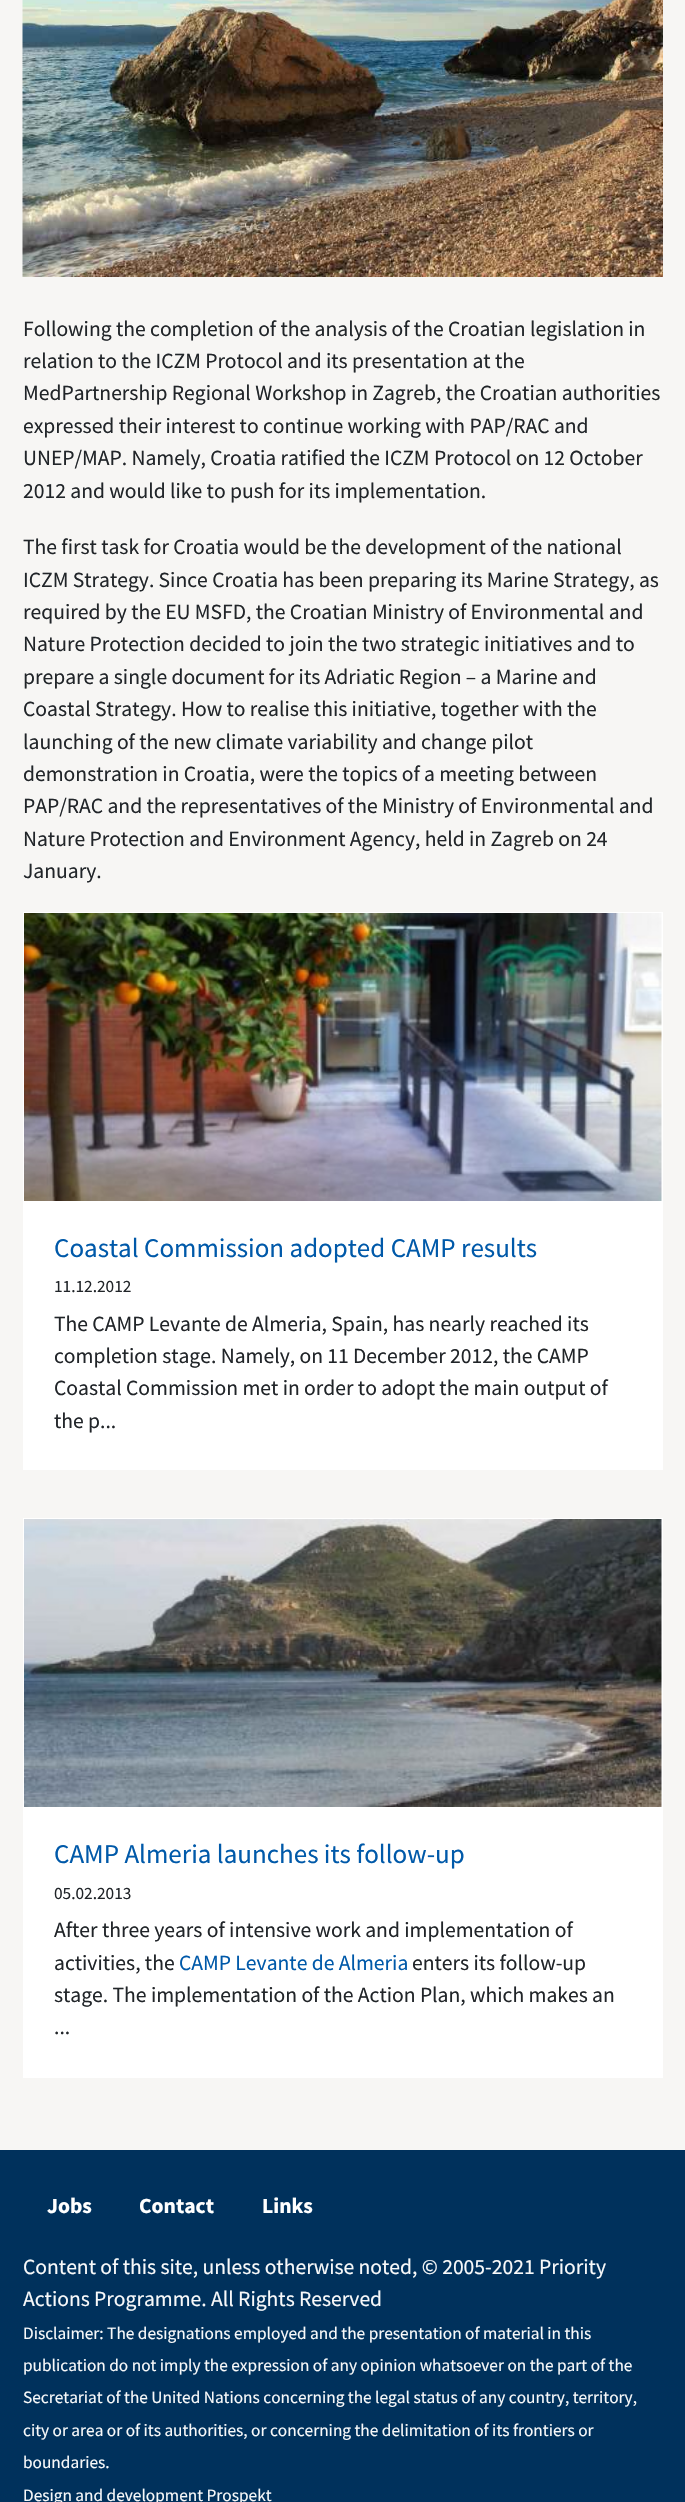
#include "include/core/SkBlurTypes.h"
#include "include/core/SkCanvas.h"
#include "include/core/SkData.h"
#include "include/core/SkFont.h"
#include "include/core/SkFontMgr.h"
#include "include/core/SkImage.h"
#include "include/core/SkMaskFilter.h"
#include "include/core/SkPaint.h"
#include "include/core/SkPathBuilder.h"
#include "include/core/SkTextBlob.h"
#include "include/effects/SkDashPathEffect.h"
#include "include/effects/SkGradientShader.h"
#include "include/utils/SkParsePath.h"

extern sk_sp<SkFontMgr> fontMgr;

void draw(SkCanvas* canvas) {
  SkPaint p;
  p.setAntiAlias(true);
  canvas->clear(SkColorSetRGB(247, 246, 244));
  canvas->drawImageRect(SkImages::DeferredFromEncodedData(SkData::MakeFromFileName("images/1.png")), SkRect::MakeLTRB(22, 0, 663, 277), SkSamplingOptions());
  p.setColor(SK_ColorWHITE);
  canvas->drawRect(SkRect::MakeLTRB(23, 912, 663, 1470), p);
  canvas->drawImageRect(SkImages::DeferredFromEncodedData(SkData::MakeFromFileName("images/2.png")), SkRect::MakeLTRB(24, 913, 662, 1201), SkSamplingOptions());
  canvas->drawRect(SkRect::MakeLTRB(23, 1518, 663, 2078), p);
  canvas->drawImageRect(SkImages::DeferredFromEncodedData(SkData::MakeFromFileName("images/3.png")), SkRect::MakeLTRB(24, 1519, 662, 1807), SkSamplingOptions());
  p.setColor(SkColorSetRGB(0, 49, 92));
  canvas->drawRect(SkRect::MakeLTRB(0, 2150, 685, 2502), p);
  SkFont font1(fontMgr->matchFamilyStyle("Source Sans Pro", SkFontStyle::Normal()), 21.6f);
  font1.setSubpixel(true);
  p.setColor(SkColorSetRGB(33, 37, 41));
  canvas->drawString("Following the completion of the analysis of the Croatian legislation in", 23, 336, font1, p);
  canvas->drawString("relation to the ICZM Protocol and its presentation at the", 23, 368, font1, p);
  canvas->drawString("MedPartnership Regional Workshop in Zagreb, the Croatian authorities", 23, 400, font1, p);
  canvas->drawString("expressed their interest to continue working with PAP/RAC and", 23, 433, font1, p);
  canvas->drawString("UNEP/MAP. Namely, Croatia ratified the ICZM Protocol on 12 October", 23, 465, font1, p);
  canvas->drawString("2012 and would like to push for its implementation.", 23, 498, font1, p);
  canvas->drawString("The first task for Croatia would be the development of the national", 23, 554, font1, p);
  canvas->drawString("ICZM Strategy. Since Croatia has been preparing its Marine Strategy, as", 23, 587, font1, p);
  canvas->drawString("required by the EU MSFD, the Croatian Ministry of Environmental and", 23, 619, font1, p);
  canvas->drawString("Nature Protection decided to join the two strategic initiatives and to", 23, 651, font1, p);
  canvas->drawString("prepare a single document for its Adriatic Region – a Marine and", 23, 684, font1, p);
  canvas->drawString("Coastal Strategy. How to realise this initiative, together with the", 23, 716, font1, p);
  canvas->drawString("launching of the new climate variability and change pilot", 23, 749, font1, p);
  canvas->drawString("demonstration in Croatia, were the topics of a meeting between", 23, 781, font1, p);
  canvas->drawString("PAP/RAC and the representatives of the Ministry of Environmental and", 23, 813, font1, p);
  canvas->drawString("Nature Protection and Environment Agency, held in Zagreb on 24", 23, 846, font1, p);
  canvas->drawString("January.", 23, 878, font1, p);
  SkFont font2(fontMgr->matchFamilyStyle("Source Sans Pro", SkFontStyle::Normal()), 27);
  font2.setSubpixel(true);
  p.setColor(SkColorSetRGB(0, 89, 169));
  canvas->drawString("Coastal Commission adopted CAMP results", 54, 1257, font2, p);
  SkFont font3(fontMgr->matchFamilyStyle("Source Sans Pro", SkFontStyle::Normal()), 17.3f);
  font3.setSubpixel(true);
  p.setColor(SkColorSetRGB(33, 37, 41));
  canvas->drawString("11.12.2012", 54, 1292, font3, p);
  canvas->drawString("The CAMP Levante de Almeria, Spain, has nearly reached its", 54, 1331, font1, p);
  canvas->drawString("completion stage. Namely, on 11 December 2012, the CAMP", 54, 1363, font1, p);
  canvas->drawString("Coastal Commission met in order to adopt the main output of", 54, 1395, font1, p);
  canvas->drawString("the p...", 54, 1428, font1, p);
  p.setColor(SkColorSetRGB(0, 89, 169));
  canvas->drawString("CAMP Almeria launches its follow-up", 54, 1863, font2, p);
  p.setColor(SkColorSetRGB(33, 37, 41));
  canvas->drawString("05.02.2013", 54, 1899, font3, p);
  canvas->drawString("After three years of intensive work and implementation of", 54, 1937, font1, p);
  canvas->drawString("activities, the", 54, 1970, font1, p);
  p.setColor(SkColorSetRGB(0, 89, 169));
  canvas->drawString("CAMP Levante de Almeria", 179, 1970, font1, p);
  p.setColor(SkColorSetRGB(33, 37, 41));
  canvas->drawString("enters its follow-up", 412, 1970, font1, p);
  canvas->drawString("stage. The implementation of the Action Plan, which makes an", 54, 2002, font1, p);
  canvas->drawString("...", 54, 2034, font1, p);
  SkFont font4(fontMgr->matchFamilyStyle("Source Sans Pro", SkFontStyle::Bold()), 21.6f);
  font4.setSubpixel(true);
  p.setColor(SK_ColorWHITE);
  canvas->drawString("Jobs", 47, 2213, font4, p);
  canvas->drawString("Contact", 139, 2213, font4, p);
  canvas->drawString("Links", 262, 2213, font4, p);
  p.setColor(SkColorSetRGB(248, 249, 250));
  canvas->drawString("Content of this site, unless otherwise noted, © 2005-2021 Priority", 23, 2274, font1, p);
  canvas->drawString("Actions Programme. All Rights Reserved", 23, 2306, font1, p);
  canvas->drawString("Disclaimer: The designations employed and the presentation of material in this", 23, 2339, font3, p);
  canvas->drawString("publication do not imply the expression of any opinion whatsoever on the part of the", 23, 2371, font3, p);
  canvas->drawString("Secretariat of the United Nations concerning the legal status of any country, territory,", 23, 2403, font3, p);
  canvas->drawString("city or area or of its authorities, or concerning the delimitation of its frontiers or", 23, 2436, font3, p);
  canvas->drawString("boundaries.", 23, 2468, font3, p);
  canvas->drawString("Design and development Prospekt", 23, 2501, font3, p);
}
